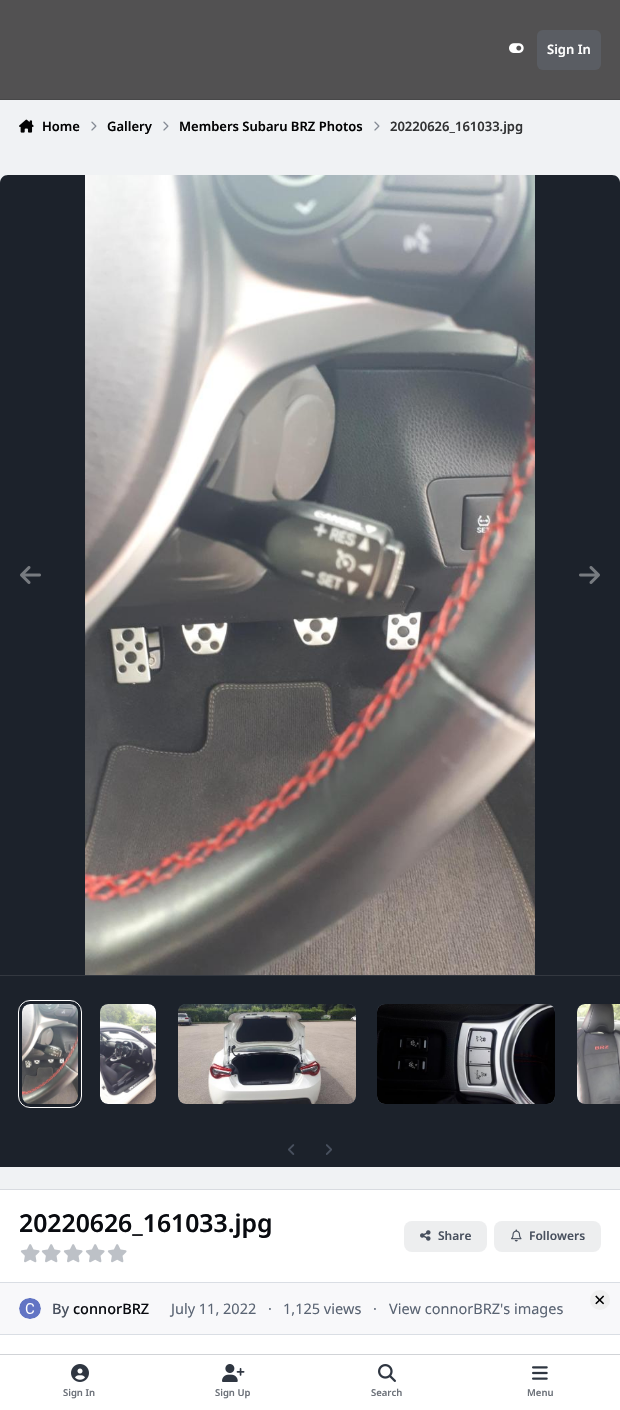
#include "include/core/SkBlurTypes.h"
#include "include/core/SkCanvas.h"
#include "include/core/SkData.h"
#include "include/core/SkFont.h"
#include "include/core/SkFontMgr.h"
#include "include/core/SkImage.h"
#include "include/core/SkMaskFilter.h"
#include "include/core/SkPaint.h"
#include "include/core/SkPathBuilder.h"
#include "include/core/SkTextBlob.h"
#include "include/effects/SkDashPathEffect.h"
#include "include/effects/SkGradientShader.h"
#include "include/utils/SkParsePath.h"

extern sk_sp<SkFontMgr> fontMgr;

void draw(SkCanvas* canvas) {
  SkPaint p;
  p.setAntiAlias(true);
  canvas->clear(SkColorSetRGB(240, 242, 244));
  p.setColor(SkColorSetRGB(82, 81, 82));
  canvas->drawRect(SkRect::MakeLTRB(0, 0, 620, 99), p);
  p.setColor(SkColorSetRGB(71, 71, 72));
  canvas->drawRect(SkRect::MakeLTRB(0, 99, 620, 100), p);
  canvas->drawImageRect(SkImages::DeferredFromEncodedData(SkData::MakeFromFileName("images/1.png")), SkRect::MakeLTRB(509, 43, 524, 53), SkSamplingOptions());
  p.setColor(SkColorSetRGB(90, 93, 99));
  canvas->drawRoundRect(SkRect::MakeLTRB(537, 30, 601, 70), 6, 6, p);
  canvas->drawImageRect(SkImages::DeferredFromEncodedData(SkData::MakeFromFileName("images/2.png")), SkRect::MakeLTRB(19, 119, 34, 133), SkSamplingOptions());
  canvas->drawImageRect(SkImages::DeferredFromEncodedData(SkData::MakeFromFileName("images/3.png")), SkRect::MakeLTRB(91, 121, 97, 131), SkSamplingOptions());
  canvas->drawImageRect(SkImages::DeferredFromEncodedData(SkData::MakeFromFileName("images/3.png")), SkRect::MakeLTRB(163, 121, 169, 131), SkSamplingOptions());
  canvas->drawImageRect(SkImages::DeferredFromEncodedData(SkData::MakeFromFileName("images/3.png")), SkRect::MakeLTRB(374, 121, 380, 131), SkSamplingOptions());
  p.setColor(SkColorSetRGB(28, 34, 43));
  canvas->drawPath(SkPathBuilder().moveTo(8, 175).lineTo(612, 175).cubicTo(616.5f, 175, 620, 178.5f, 620, 183).lineTo(620, 975).lineTo(0, 975).lineTo(0, 183).cubicTo(0, 178.5f, 3.5f, 175, 8, 175).close().detach(), p);
  canvas->drawImageRect(SkImages::DeferredFromEncodedData(SkData::MakeFromFileName("images/4.png")), SkRect::MakeLTRB(85, 175, 535, 975), SkSamplingOptions());
  canvas->drawImageRect(SkImages::DeferredFromEncodedData(SkData::MakeFromFileName("images/5.png")), SkRect::MakeLTRB(20, 566, 41, 584), SkSamplingOptions());
  canvas->drawImageRect(SkImages::DeferredFromEncodedData(SkData::MakeFromFileName("images/6.png")), SkRect::MakeLTRB(579, 566, 600, 584), SkSamplingOptions());
  canvas->drawRect(SkRect::MakeLTRB(0, 976, 620, 1167), p);
  p.setColor(SkColorSetRGB(51, 56, 64));
  canvas->drawRect(SkRect::MakeLTRB(0, 975, 620, 976), p);
  p.setColor(SkColorSetRGB(64, 72, 85));
  canvas->drawRoundRect(SkRect::MakeLTRB(22, 1004, 78, 1104), 8, 8, p);
  p.setStyle(SkPaint::kStroke_Style);
  p.setStrokeWidth(1);
  p.setColor(SK_ColorWHITE);
  canvas->drawRoundRect(SkRect::MakeLTRB(18.5f, 1000.5f, 81.5f, 1107.5f), 11.5f, 11.5f, p);
  canvas->drawImageRect(SkImages::DeferredFromEncodedData(SkData::MakeFromFileName("images/7.png")), SkRect::MakeLTRB(22, 1004, 78, 1104), SkSamplingOptions());
  p.setStyle(SkPaint::kFill_Style);
  p.setColor(SkColorSetRGB(64, 72, 85));
  canvas->drawRoundRect(SkRect::MakeLTRB(100, 1004, 156, 1104), 8, 8, p);
  canvas->drawImageRect(SkImages::DeferredFromEncodedData(SkData::MakeFromFileName("images/8.png")), SkRect::MakeLTRB(100, 1004, 156, 1104), SkSamplingOptions());
  canvas->drawRoundRect(SkRect::MakeLTRB(178, 1004, 356, 1104), 8, 8, p);
  canvas->drawImageRect(SkImages::DeferredFromEncodedData(SkData::MakeFromFileName("images/9.png")), SkRect::MakeLTRB(178, 1004, 356, 1104), SkSamplingOptions());
  canvas->drawRoundRect(SkRect::MakeLTRB(377, 1004, 555, 1104), 8, 8, p);
  canvas->drawImageRect(SkImages::DeferredFromEncodedData(SkData::MakeFromFileName("images/10.png")), SkRect::MakeLTRB(377, 1004, 555, 1104), SkSamplingOptions());
  canvas->drawPath(SkPathBuilder().moveTo(585, 1004).lineTo(620, 1004).lineTo(620, 1104).lineTo(585, 1104).cubicTo(580.5f, 1104, 577, 1100.5f, 577, 1096).lineTo(577, 1012).cubicTo(577, 1007.5f, 580.5f, 1004, 585, 1004).close().detach(), p);
  canvas->drawImageRect(SkImages::DeferredFromEncodedData(SkData::MakeFromFileName("images/11.png")), SkRect::MakeLTRB(577, 1004, 620, 1104), SkSamplingOptions());
  canvas->drawImageRect(SkImages::DeferredFromEncodedData(SkData::MakeFromFileName("images/12.png")), SkRect::MakeLTRB(288, 1144, 295, 1155), SkSamplingOptions());
  canvas->drawImageRect(SkImages::DeferredFromEncodedData(SkData::MakeFromFileName("images/13.png")), SkRect::MakeLTRB(326, 1144, 332, 1155), SkSamplingOptions());
  p.setColor(SkColorSetRGB(216, 219, 224));
  canvas->drawRect(SkRect::MakeLTRB(0, 1189, 620, 1190), p);
  p.setColor(SK_ColorWHITE);
  canvas->drawRect(SkRect::MakeLTRB(0, 1190, 620, 1410), p);
  p.setColor(SkColorSetRGB(218, 222, 228));
  canvas->drawRect(SkRect::MakeLTRB(0, 1334, 620, 1335), p);
  canvas->drawImageRect(SkImages::DeferredFromEncodedData(SkData::MakeFromFileName("images/14.png")), SkRect::MakeLTRB(20, 1244, 40, 1263), SkSamplingOptions());
  canvas->drawImageRect(SkImages::DeferredFromEncodedData(SkData::MakeFromFileName("images/14.png")), SkRect::MakeLTRB(41, 1244, 61, 1263), SkSamplingOptions());
  canvas->drawImageRect(SkImages::DeferredFromEncodedData(SkData::MakeFromFileName("images/14.png")), SkRect::MakeLTRB(63, 1244, 83, 1263), SkSamplingOptions());
  canvas->drawImageRect(SkImages::DeferredFromEncodedData(SkData::MakeFromFileName("images/14.png")), SkRect::MakeLTRB(85, 1244, 105, 1263), SkSamplingOptions());
  canvas->drawImageRect(SkImages::DeferredFromEncodedData(SkData::MakeFromFileName("images/14.png")), SkRect::MakeLTRB(107, 1244, 127, 1263), SkSamplingOptions());
  p.setColor(SkColorSetRGB(237, 238, 239));
  canvas->drawRoundRect(SkRect::MakeLTRB(404, 1221, 487, 1252), 8, 8, p);
  canvas->drawImageRect(SkImages::DeferredFromEncodedData(SkData::MakeFromFileName("images/15.png")), SkRect::MakeLTRB(420, 1230, 431, 1241), SkSamplingOptions());
  canvas->drawRoundRect(SkRect::MakeLTRB(494, 1221, 601, 1252), 8, 8, p);
  canvas->drawImageRect(SkImages::DeferredFromEncodedData(SkData::MakeFromFileName("images/16.png")), SkRect::MakeLTRB(511, 1229, 522, 1242), SkSamplingOptions());
  p.setColor(SkColorSetRGB(248, 248, 250));
  canvas->drawRect(SkRect::MakeLTRB(0, 1283, 620, 1334), p);
  p.setColor(SkColorSetRGB(218, 222, 228));
  canvas->drawRect(SkRect::MakeLTRB(0, 1282, 620, 1283), p);
  p.setColor(SkColorSetRGB(231, 234, 238));
  canvas->drawRoundRect(SkRect::MakeLTRB(19, 1298, 41, 1319), 10.5f, 10.5f, p);
  canvas->drawImageRect(SkImages::DeferredFromEncodedData(SkData::MakeFromFileName("images/17.png")), SkRect::MakeLTRB(19, 1298, 41, 1319), SkSamplingOptions());
  p.setColor(SkColorSetRGB(239, 239, 239));
  canvas->drawCircle(600, 1300, 10, p);
  p.setColor(SkColorSetRGB(209, 211, 215));
  canvas->drawRect(SkRect::MakeLTRB(0, 1354, 620, 1355), p);
  canvas->drawImageRect(SkImages::DeferredFromEncodedData(SkData::MakeFromFileName("images/18.png")), SkRect::MakeLTRB(71, 1364, 89, 1382), SkSamplingOptions());
  canvas->drawImageRect(SkImages::DeferredFromEncodedData(SkData::MakeFromFileName("images/19.png")), SkRect::MakeLTRB(222, 1364, 245, 1382), SkSamplingOptions());
  canvas->drawImageRect(SkImages::DeferredFromEncodedData(SkData::MakeFromFileName("images/20.png")), SkRect::MakeLTRB(378, 1364, 396, 1382), SkSamplingOptions());
  canvas->drawImageRect(SkImages::DeferredFromEncodedData(SkData::MakeFromFileName("images/21.png")), SkRect::MakeLTRB(532, 1366, 548, 1380), SkSamplingOptions());
  SkFont font1(fontMgr->matchFamilyStyle("Noto Sans", SkFontStyle(600, SkFontStyle::kNormal_Width, SkFontStyle::kUpright_Slant)), 13);
  font1.setSubpixel(true);
  p.setColor(SK_ColorWHITE);
  canvas->drawString("Sign In", 547, 54, font1, p);
  p.setColor(SkColorSetRGB(3, 3, 4));
  canvas->drawString("Home", 42, 131, font1, p);
  canvas->drawString("Gallery", 107, 131, font1, p);
  canvas->drawString("Members Subaru BRZ Photos", 179, 131, font1, p);
  p.setColor(SkColorSetRGB(50, 51, 52));
  canvas->drawString("20220626_161033.jpg", 390, 131, font1, p);
  SkFont font2(fontMgr->matchFamilyStyle("Noto Sans", SkFontStyle(600, SkFontStyle::kNormal_Width, SkFontStyle::kUpright_Slant)), 24.75f);
  font2.setSubpixel(true);
  p.setColor(SkColorSetRGB(9, 11, 16));
  canvas->drawString("20220626_161033.jpg", 19, 1232, font2, p);
  SkFont font3(fontMgr->matchFamilyStyle("Noto Sans", SkFontStyle(600, SkFontStyle::kNormal_Width, SkFontStyle::kUpright_Slant)), 12);
  font3.setSubpixel(true);
  p.setColor(SkColorSetRGB(72, 80, 94));
  canvas->drawString("Share", 438, 1240, font3, p);
  canvas->drawString("Followers", 529, 1240, font3, p);
  SkFont font4(fontMgr->matchFamilyStyle("Noto Sans", SkFontStyle(500, SkFontStyle::kNormal_Width, SkFontStyle::kUpright_Slant)), 14.5f);
  font4.setSubpixel(true);
  canvas->drawString("By", 52, 1314, font4, p);
  p.setColor(SkColorSetRGB(9, 11, 16));
  canvas->drawString("connorBRZ", 73, 1314, font4, p);
  SkFont font5(fontMgr->matchFamilyStyle("Noto Sans", SkFontStyle::Normal()), 14.5f);
  font5.setSubpixel(true);
  p.setColor(SkColorSetRGB(90, 100, 115));
  canvas->drawString("July 11, 2022", 171, 1314, font5, p);
  canvas->drawString("·", 268, 1314, font5, p);
  canvas->drawString("1,125 views", 283, 1314, font5, p);
  canvas->drawString("·", 373, 1314, font5, p);
  canvas->drawString("View connorBRZ's images", 389, 1314, font5, p);
  SkFont font6(fontMgr->matchFamilyStyle("Noto Sans", SkFontStyle::Normal()), 20);
  font6.setSubpixel(true);
  p.setColor(SkColorSetRGB(3, 3, 4));
  canvas->drawString("×", 594, 1307, font6, p);
  SkFont font7(fontMgr->matchFamilyStyle("Noto Sans", SkFontStyle(600, SkFontStyle::kNormal_Width, SkFontStyle::kUpright_Slant)), 9.5f);
  font7.setSubpixel(true);
  p.setColor(SkColorSetRGB(109, 114, 122));
  canvas->drawString("Sign In", 63, 1396, font7, p);
  canvas->drawString("Sign Up", 215, 1396, font7, p);
  canvas->drawString("Search", 371, 1396, font7, p);
  canvas->drawString("Menu", 527, 1396, font7, p);
}
